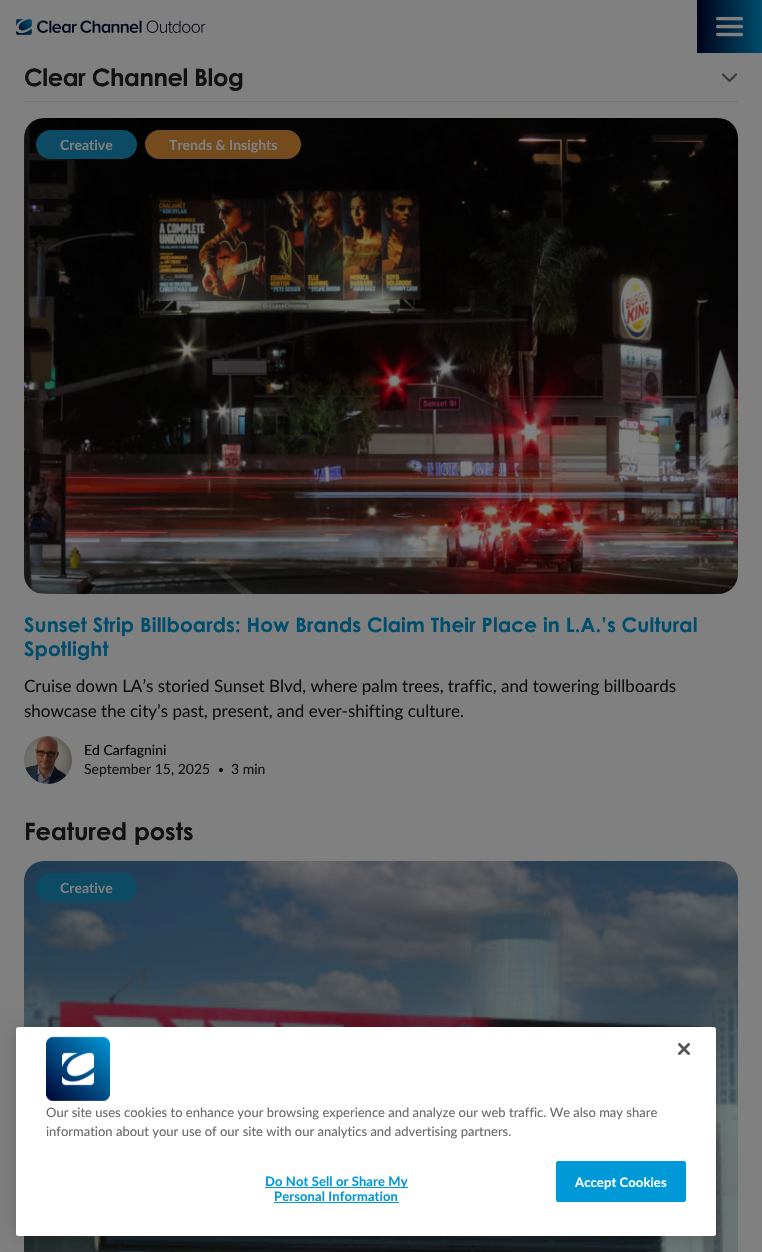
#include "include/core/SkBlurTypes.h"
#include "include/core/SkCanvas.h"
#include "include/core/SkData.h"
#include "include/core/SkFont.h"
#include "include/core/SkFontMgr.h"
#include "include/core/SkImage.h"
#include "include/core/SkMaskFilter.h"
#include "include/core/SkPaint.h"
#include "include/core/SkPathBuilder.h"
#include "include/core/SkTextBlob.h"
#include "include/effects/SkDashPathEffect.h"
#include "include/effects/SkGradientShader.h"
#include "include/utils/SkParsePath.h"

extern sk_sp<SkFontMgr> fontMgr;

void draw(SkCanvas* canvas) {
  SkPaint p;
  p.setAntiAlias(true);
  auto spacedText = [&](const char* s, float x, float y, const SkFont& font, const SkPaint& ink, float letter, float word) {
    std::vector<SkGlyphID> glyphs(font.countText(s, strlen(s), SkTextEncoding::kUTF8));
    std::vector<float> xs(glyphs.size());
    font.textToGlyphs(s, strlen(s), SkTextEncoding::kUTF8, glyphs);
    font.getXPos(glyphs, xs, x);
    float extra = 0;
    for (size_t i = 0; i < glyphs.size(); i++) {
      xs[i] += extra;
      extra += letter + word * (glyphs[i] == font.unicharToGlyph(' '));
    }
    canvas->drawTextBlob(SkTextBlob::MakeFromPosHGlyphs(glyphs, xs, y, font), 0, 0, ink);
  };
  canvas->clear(SkColorSetRGB(128, 128, 128));
  canvas->drawImageRect(SkImages::DeferredFromEncodedData(SkData::MakeFromFileName("images/1.png")), SkRect::MakeLTRB(16, 19, 206, 35), SkSamplingOptions());
  {
    const SkColor colors[] = {SkColorSetRGB(0, 2, 26), SkColorSetRGB(0, 77, 108)};
    const float stops[] = {0, 1};
    const SkPoint ends[] = {{697, 27}, {762, 26}};
    p.setShader(SkGradientShader::MakeLinear(ends, colors, stops, 2, SkTileMode::kClamp));
    p.setAlpha(255);
  }
  canvas->drawRect(SkRect::MakeLTRB(697, 0, 762, 53), p);
  canvas->drawImageRect(SkImages::DeferredFromEncodedData(SkData::MakeFromFileName("images/2.png")), SkRect::MakeLTRB(716, 16, 743, 37), SkSamplingOptions());
  p.setShader(nullptr);
  p.setColor(SkColorSetRGB(115, 115, 115));
  canvas->drawRect(SkRect::MakeLTRB(24, 101, 738, 102), p);
  p.setStyle(SkPaint::kStroke_Style);
  p.setStrokeWidth(2.2f);
  p.setStrokeCap(SkPaint::kRound_Cap);
  p.setStrokeJoin(SkPaint::kRound_Join);
  p.setColor(SkColorSetRGB(59, 59, 59));
  canvas->drawPath(SkPathBuilder().moveTo(723, 74.5f).lineTo(729.5f, 81).lineTo(736, 74.5f).detach(), p);
  canvas->drawImageRect(SkImages::DeferredFromEncodedData(SkData::MakeFromFileName("images/3.png")), SkRect::MakeLTRB(24, 118, 738, 594), SkSamplingOptions());
  p.setStyle(SkPaint::kFill_Style);
  p.setColor(SkColorSetRGB(13, 74, 99));
  canvas->drawRoundRect(SkRect::MakeLTRB(36, 130, 137, 159), 14.5f, 14.5f, p);
  p.setColor(SkColorSetRGB(115, 75, 28));
  canvas->drawRoundRect(SkRect::MakeLTRB(145, 130, 301, 159), 14.5f, 14.5f, p);
  canvas->drawImageRect(SkImages::DeferredFromEncodedData(SkData::MakeFromFileName("images/4.png")), SkRect::MakeLTRB(24, 736, 72, 784), SkSamplingOptions());
  p.setColor(SK_ColorBLACK);
  canvas->drawCircle(221, 770, 2, p);
  canvas->drawImageRect(SkImages::DeferredFromEncodedData(SkData::MakeFromFileName("images/5.png")), SkRect::MakeLTRB(24, 861, 738, 1252), SkSamplingOptions());
  p.setColor(SkColorSetRGB(13, 74, 99));
  canvas->drawRoundRect(SkRect::MakeLTRB(36, 873, 137, 902), 14.5f, 14.5f, p);
  p.setColor(SkColorSetARGB(51, 0, 0, 0));
  p.setMaskFilter(SkMaskFilter::MakeBlur(kNormal_SkBlurStyle, 9));
  canvas->drawRoundRect(SkRect::MakeLTRB(16, 1027, 716, 1236), 2.5f, 2.5f, p);
  p.setMaskFilter(nullptr);
  p.setColor(SK_ColorWHITE);
  canvas->drawRoundRect(SkRect::MakeLTRB(16, 1027, 716, 1236), 2.5f, 2.5f, p);
  canvas->drawImageRect(SkImages::DeferredFromEncodedData(SkData::MakeFromFileName("images/6.png")), SkRect::MakeLTRB(678, 1043, 690, 1055), SkSamplingOptions());
  canvas->drawImageRect(SkImages::DeferredFromEncodedData(SkData::MakeFromFileName("images/7.png")), SkRect::MakeLTRB(46, 1036, 110, 1101), SkSamplingOptions());
  p.setColor(SkColorSetRGB(0, 153, 216));
  canvas->drawRect(SkRect::MakeLTRB(265, 1187, 408, 1188), p);
  canvas->drawRect(SkRect::MakeLTRB(274, 1202, 399, 1203), p);
  canvas->drawRoundRect(SkRect::MakeLTRB(556.5f, 1161.5f, 685.5f, 1201.5f), 1.5f, 1.5f, p);
  p.setStyle(SkPaint::kStroke_Style);
  p.setStrokeWidth(1);
  p.setStrokeCap(SkPaint::kButt_Cap);
  p.setStrokeJoin(SkPaint::kMiter_Join);
  canvas->drawRoundRect(SkRect::MakeLTRB(556.5f, 1161.5f, 685.5f, 1201.5f), 1.5f, 1.5f, p);
  SkFont font1(fontMgr->matchFamilyStyle("Century Gothic", SkFontStyle::Bold()), 24);
  font1.setSubpixel(true);
  p.setStyle(SkPaint::kFill_Style);
  p.setColor(SkColorSetRGB(17, 17, 17));
  spacedText("Clear Channel Blog", 24, 86, font1, p, -0.4f, 0);
  SkFont font2(fontMgr->matchFamilyStyle("Lato", SkFontStyle::Bold()), 14);
  font2.setSubpixel(true);
  p.setColor(SkColorSetRGB(128, 128, 128));
  canvas->drawString("Creative", 60, 150, font2, p);
  canvas->drawString("Trends & Insights", 169, 150, font2, p);
  SkFont font3(fontMgr->matchFamilyStyle("Century Gothic", SkFontStyle::Bold()), 20);
  font3.setSubpixel(true);
  p.setColor(SkColorSetRGB(0, 77, 108));
  spacedText("Sunset Strip Billboards: How Brands Claim Their Place in L.A.’s Cultural", 24, 632, font3, p, 0.15f, 0);
  spacedText("Spotlight", 24, 656, font3, p, 0.15f, 0);
  SkFont font4(fontMgr->matchFamilyStyle("Lato", SkFontStyle::Normal()), 17);
  font4.setSubpixel(true);
  p.setColor(SkColorSetRGB(17, 17, 17));
  canvas->drawString("Cruise down LA’s storied Sunset Blvd, where palm trees, traffic, and towering billboards", 24, 692, font4, p);
  canvas->drawString("showcase the city’s past, present, and ever-shifting culture.", 24, 717, font4, p);
  SkFont font5(fontMgr->matchFamilyStyle("Lato", SkFontStyle::Normal()), 14);
  font5.setSubpixel(true);
  p.setColor(SK_ColorBLACK);
  canvas->drawString("Ed Carfagnini", 84, 755, font5, p);
  p.setColor(SkColorSetRGB(17, 17, 17));
  canvas->drawString("September 15, 2025", 84, 774, font5, p);
  canvas->drawString("3 min", 231, 774, font5, p);
  canvas->drawString("Featured posts", 24, 840, font1, p);
  p.setColor(SkColorSetRGB(128, 128, 128));
  canvas->drawString("Creative", 60, 893, font2, p);
  SkFont font6(fontMgr->matchFamilyStyle("Lato", SkFontStyle::Normal()), 13);
  font6.setSubpixel(true);
  p.setColor(SkColorSetRGB(105, 105, 105));
  canvas->drawString("Our site uses cookies to enhance your browsing experience and analyze our web traffic. We also may share", 46, 1117, font6, p);
  canvas->drawString("information about your use of our site with our analytics and advertising partners.", 46, 1136, font6, p);
  SkFont font7(fontMgr->matchFamilyStyle("Lato", SkFontStyle::Bold()), 13);
  font7.setSubpixel(true);
  p.setColor(SkColorSetRGB(0, 153, 216));
  spacedText("Do Not Sell or Share My", 265, 1186, font7, p, 0.1f, 0);
  spacedText("Personal Information", 274, 1201, font7, p, 0.1f, 0);
  p.setColor(SK_ColorWHITE);
  spacedText("Accept Cookies", 575, 1187, font7, p, 0.1f, 0);
}
